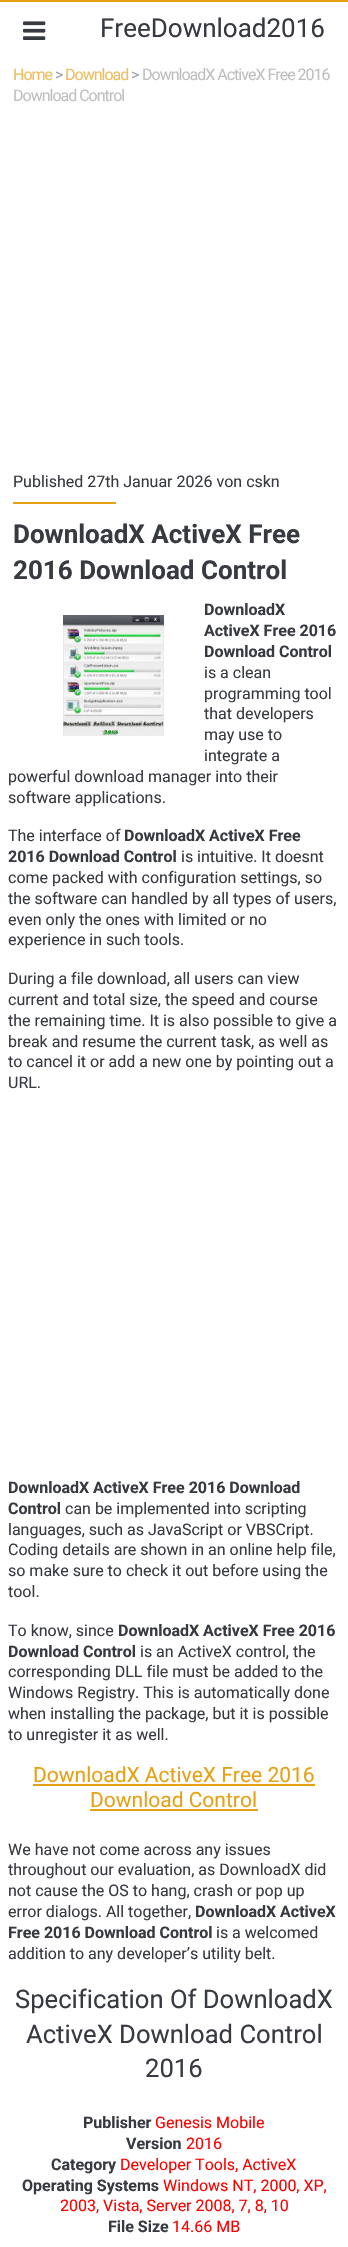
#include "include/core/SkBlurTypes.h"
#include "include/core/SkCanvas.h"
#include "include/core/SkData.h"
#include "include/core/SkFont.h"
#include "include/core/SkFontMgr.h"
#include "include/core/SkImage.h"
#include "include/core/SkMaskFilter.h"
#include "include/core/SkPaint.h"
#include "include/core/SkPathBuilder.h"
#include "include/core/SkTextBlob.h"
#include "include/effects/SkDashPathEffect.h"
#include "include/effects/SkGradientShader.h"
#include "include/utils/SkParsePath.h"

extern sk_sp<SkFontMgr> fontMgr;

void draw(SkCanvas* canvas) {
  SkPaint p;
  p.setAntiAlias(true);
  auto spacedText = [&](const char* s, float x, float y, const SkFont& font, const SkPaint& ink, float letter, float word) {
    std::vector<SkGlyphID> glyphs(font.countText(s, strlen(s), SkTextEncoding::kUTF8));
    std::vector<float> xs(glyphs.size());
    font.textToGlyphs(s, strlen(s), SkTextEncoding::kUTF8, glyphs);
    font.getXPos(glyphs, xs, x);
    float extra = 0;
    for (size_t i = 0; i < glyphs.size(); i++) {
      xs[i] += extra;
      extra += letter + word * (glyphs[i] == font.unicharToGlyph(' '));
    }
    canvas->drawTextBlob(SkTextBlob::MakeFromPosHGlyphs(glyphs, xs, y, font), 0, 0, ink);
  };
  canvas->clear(SK_ColorWHITE);
  p.setColor(SkColorSetRGB(230, 161, 23));
  canvas->drawRect(SkRect::MakeLTRB(0, 0, 348, 2), p);
  canvas->drawImageRect(SkImages::DeferredFromEncodedData(SkData::MakeFromFileName("images/1.png")), SkRect::MakeLTRB(23, 21, 46, 40), SkSamplingOptions());
  canvas->drawRect(SkRect::MakeLTRB(13, 502, 116, 504), p);
  canvas->drawImageRect(SkImages::DeferredFromEncodedData(SkData::MakeFromFileName("images/2.png")), SkRect::MakeLTRB(63, 615, 164, 736), SkSamplingOptions());
  canvas->drawRect(SkRect::MakeLTRB(33, 1784, 315, 1786), p);
  canvas->drawRect(SkRect::MakeLTRB(90, 1809, 258, 1811), p);
  SkFont font1(fontMgr->matchFamilyStyle("Roboto", SkFontStyle::Normal()), 26);
  font1.setSubpixel(true);
  p.setColor(SkColorSetRGB(55, 59, 65));
  canvas->drawString("FreeDownload2016", 100, 37, font1, p);
  SkFont font2(fontMgr->matchFamilyStyle("Roboto", SkFontStyle::Normal()), 16);
  font2.setSubpixel(true);
  p.setColor(SkColorSetRGB(238, 189, 93));
  spacedText("Home", 13, 80, font2, p, -1, 0);
  p.setColor(SkColorSetRGB(163, 164, 165));
  spacedText(">", 55, 80, font2, p, -1, 0);
  p.setColor(SkColorSetRGB(238, 189, 93));
  spacedText("Download", 65, 80, font2, p, -1, 0);
  p.setColor(SkColorSetRGB(163, 164, 165));
  spacedText(">", 131, 80, font2, p, -1, 0);
  p.setColor(SkColorSetRGB(191, 191, 192));
  spacedText("DownloadX ActiveX Free 2016", 142, 80, font2, p, -1, 0);
  spacedText("Download Control", 13, 101, font2, p, -1, 0);
  p.setColor(SkColorSetRGB(55, 59, 65));
  canvas->drawString("Published 27th Januar 2026 von cskn", 13, 487, font2, p);
  SkFont font3(fontMgr->matchFamilyStyle("Roboto", SkFontStyle::Bold()), 26);
  font3.setSubpixel(true);
  canvas->drawString("DownloadX ActiveX Free", 13, 543, font3, p);
  canvas->drawString("2016 Download Control", 13, 579, font3, p);
  SkFont font4(fontMgr->matchFamilyStyle("Roboto", SkFontStyle::Bold()), 16);
  font4.setSubpixel(true);
  canvas->drawString("DownloadX", 204, 615, font4, p);
  canvas->drawString("ActiveX Free 2016", 204, 636, font4, p);
  canvas->drawString("Download Control", 204, 657, font4, p);
  canvas->drawString("is a clean", 204, 678, font2, p);
  canvas->drawString("programming tool", 204, 699, font2, p);
  canvas->drawString("that developers", 204, 719, font2, p);
  canvas->drawString("may use to", 204, 740, font2, p);
  canvas->drawString("integrate a", 204, 761, font2, p);
  canvas->drawString("powerful download manager into their", 8, 782, font2, p);
  canvas->drawString("software applications.", 8, 803, font2, p);
  canvas->drawString("The interface of", 8, 841, font2, p);
  canvas->drawString("DownloadX ActiveX Free", 124, 841, font4, p);
  canvas->drawString("2016 Download Control", 8, 862, font4, p);
  canvas->drawString("is intuitive. It doesnt", 181, 862, font2, p);
  canvas->drawString("come packed with configuration settings, so", 8, 883, font2, p);
  canvas->drawString("the software can handled by all types of users,", 8, 904, font2, p);
  canvas->drawString("even only the ones with limited or no", 8, 925, font2, p);
  canvas->drawString("experience in such tools.", 8, 945, font2, p);
  canvas->drawString("During a file download, all users can view", 8, 984, font2, p);
  canvas->drawString("current and total size, the speed and course", 8, 1005, font2, p);
  canvas->drawString("the remaining time. It is also possible to give a", 8, 1026, font2, p);
  canvas->drawString("break and resume the current task, as well as", 8, 1047, font2, p);
  canvas->drawString("to cancel it or add a new one by pointing out a", 8, 1067, font2, p);
  canvas->drawString("URL.", 8, 1088, font2, p);
  canvas->drawString("DownloadX ActiveX Free 2016 Download", 8, 1493, font4, p);
  canvas->drawString("Control", 8, 1514, font4, p);
  canvas->drawString("can be implemented into scripting", 65, 1514, font2, p);
  canvas->drawString("languages, such as JavaScript or VBSCript.", 8, 1535, font2, p);
  canvas->drawString("Coding details are shown in an online help file,", 8, 1555, font2, p);
  canvas->drawString("so make sure to check it out before using the", 8, 1576, font2, p);
  canvas->drawString("tool.", 8, 1597, font2, p);
  canvas->drawString("To know, since", 8, 1636, font2, p);
  canvas->drawString("DownloadX ActiveX Free 2016", 118, 1636, font4, p);
  canvas->drawString("Download Control", 8, 1657, font4, p);
  canvas->drawString("is an ActiveX control, the", 140, 1657, font2, p);
  canvas->drawString("corresponding DLL file must be added to the", 8, 1677, font2, p);
  canvas->drawString("Windows Registry. This is automatically done", 8, 1698, font2, p);
  canvas->drawString("when installing the package, but it is possible", 8, 1719, font2, p);
  canvas->drawString("to unregister it as well.", 8, 1740, font2, p);
  SkFont font5(fontMgr->matchFamilyStyle("Roboto", SkFontStyle::Normal()), 21);
  font5.setSubpixel(true);
  p.setColor(SkColorSetRGB(230, 161, 23));
  canvas->drawString("DownloadX ActiveX Free 2016", 33, 1782, font5, p);
  canvas->drawString("Download Control", 90, 1807, font5, p);
  p.setColor(SkColorSetRGB(55, 59, 65));
  canvas->drawString("We have not come across any issues", 8, 1855, font2, p);
  canvas->drawString("throughout our evaluation, as DownloadX did", 8, 1875, font2, p);
  canvas->drawString("not cause the OS to hang, crash or pop up", 8, 1896, font2, p);
  canvas->drawString("error dialogs. All together,", 8, 1917, font2, p);
  canvas->drawString("DownloadX ActiveX", 195, 1917, font4, p);
  canvas->drawString("Free 2016 Download Control", 8, 1938, font4, p);
  canvas->drawString("is a welcomed", 216, 1938, font2, p);
  canvas->drawString("addition to any developer’s utility belt.", 8, 1959, font2, p);
  SkFont font6(fontMgr->matchFamilyStyle("Roboto", SkFontStyle::Normal()), 25.6f);
  font6.setSubpixel(true);
  canvas->drawString("Specification Of DownloadX", 15, 2008, font6, p);
  canvas->drawString("ActiveX Download Control", 26, 2043, font6, p);
  canvas->drawString("2016", 145, 2077, font6, p);
  canvas->drawString("Publisher", 83, 2128, font4, p);
  p.setColor(SkColorSetRGB(255, 0, 0));
  canvas->drawString("Genesis Mobile", 155, 2128, font2, p);
  p.setColor(SkColorSetRGB(55, 59, 65));
  canvas->drawString("Version", 126, 2149, font4, p);
  p.setColor(SkColorSetRGB(255, 0, 0));
  canvas->drawString("2016", 186, 2149, font2, p);
  p.setColor(SkColorSetRGB(55, 59, 65));
  canvas->drawString("Category", 51, 2170, font4, p);
  p.setColor(SkColorSetRGB(255, 0, 0));
  canvas->drawString("Developer Tools, ActiveX", 120, 2170, font2, p);
  p.setColor(SkColorSetRGB(55, 59, 65));
  canvas->drawString("Operating Systems", 22, 2191, font4, p);
  p.setColor(SkColorSetRGB(255, 0, 0));
  canvas->drawString("Windows NT, 2000, XP,", 163, 2191, font2, p);
  canvas->drawString("2003, Vista, Server 2008, 7, 8, 10", 60, 2211, font2, p);
  p.setColor(SkColorSetRGB(55, 59, 65));
  canvas->drawString("File Size", 108, 2232, font4, p);
  p.setColor(SkColorSetRGB(255, 0, 0));
  canvas->drawString("14.66 MB", 172, 2232, font2, p);
}
